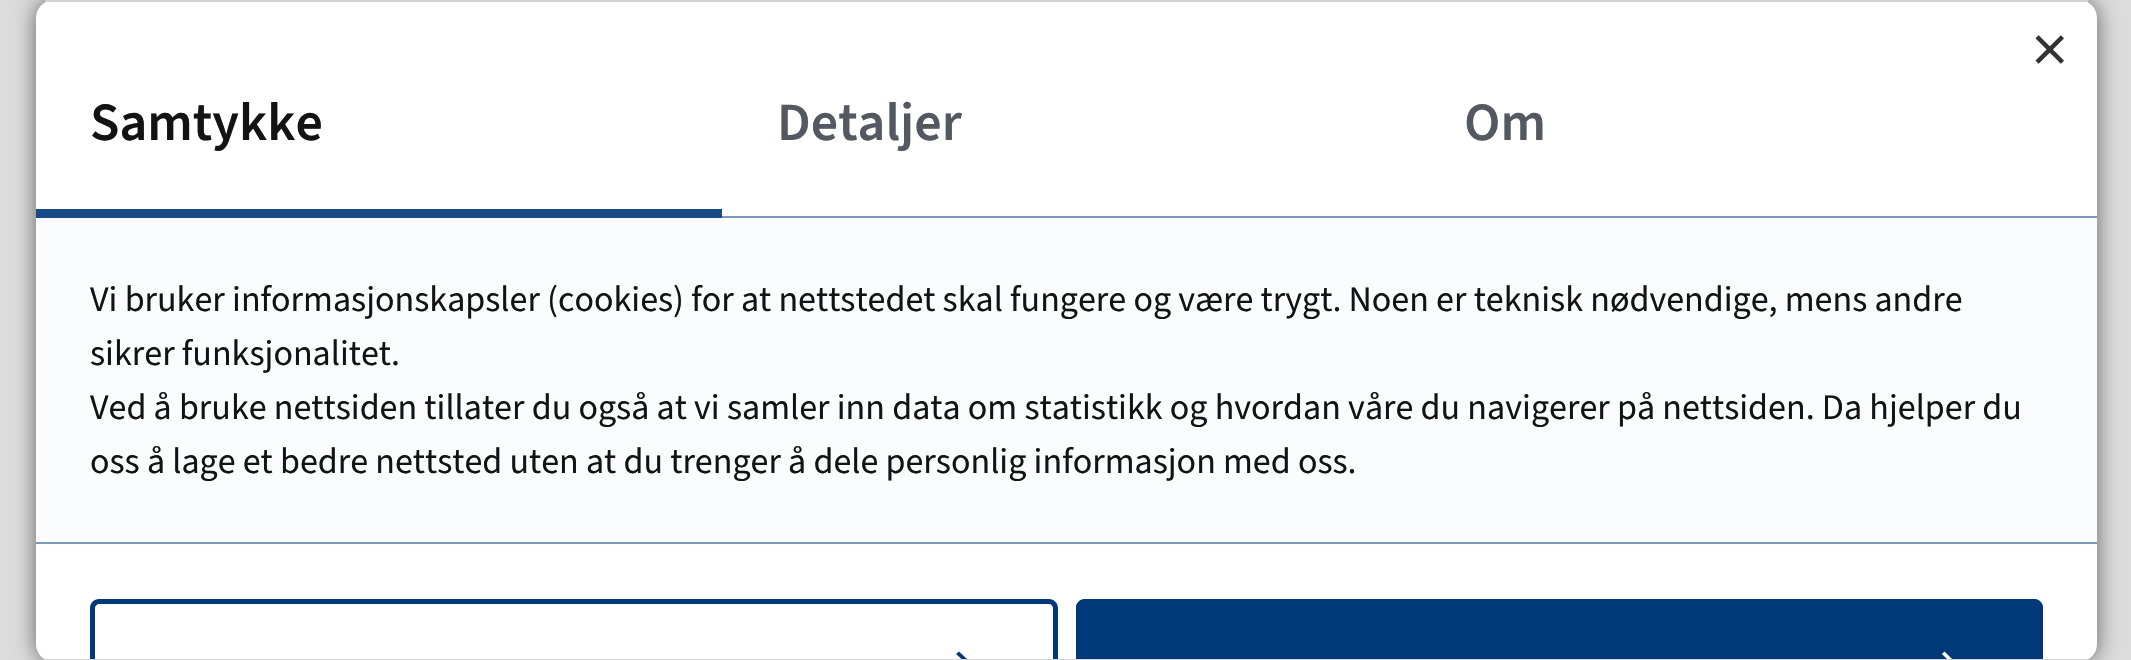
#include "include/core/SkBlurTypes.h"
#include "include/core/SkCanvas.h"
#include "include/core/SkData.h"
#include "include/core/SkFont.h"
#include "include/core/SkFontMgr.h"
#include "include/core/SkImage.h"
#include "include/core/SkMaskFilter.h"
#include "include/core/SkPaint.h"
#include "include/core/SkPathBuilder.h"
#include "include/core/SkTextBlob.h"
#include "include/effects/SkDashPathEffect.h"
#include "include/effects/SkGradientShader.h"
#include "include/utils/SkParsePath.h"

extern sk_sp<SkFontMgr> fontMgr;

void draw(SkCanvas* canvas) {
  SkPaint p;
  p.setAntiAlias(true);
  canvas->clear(SkColorSetRGB(220, 220, 220));
  p.setColor(SkColorSetRGB(97, 97, 97));
  p.setMaskFilter(SkMaskFilter::MakeBlur(kNormal_SkBlurStyle, 11));
  canvas->drawRoundRect(SkRect::MakeLTRB(36, 0, 2097, 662), 18, 18, p);
  p.setMaskFilter(nullptr);
  p.setColor(SK_ColorWHITE);
  canvas->drawRoundRect(SkRect::MakeLTRB(36, 0, 2097, 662), 18, 18, p);
  canvas->drawImageRect(SkImages::DeferredFromEncodedData(SkData::MakeFromFileName("images/1.png")), SkRect::MakeLTRB(2035, 35, 2064, 64), SkSamplingOptions());
  p.setColor(SkColorSetRGB(211, 211, 211));
  canvas->drawRect(SkRect::MakeLTRB(45, 0, 2088, 2), p);
  canvas->drawRect(SkRect::MakeLTRB(45, 659, 2088, 660), p);
  p.setColor(SkColorSetRGB(25, 75, 134));
  canvas->drawRect(SkRect::MakeLTRB(36, 209, 722, 218), p);
  p.setColor(SkColorSetRGB(126, 154, 187));
  canvas->drawRect(SkRect::MakeLTRB(722, 216, 2097, 218), p);
  p.setColor(SkColorSetRGB(251, 252, 254));
  canvas->drawRect(SkRect::MakeLTRB(36, 218, 2097, 545), p);
  p.setColor(SkColorSetRGB(126, 154, 187));
  canvas->drawRect(SkRect::MakeLTRB(36, 542, 2097, 544), p);
  p.setColor(SkColorSetRGB(0, 56, 121));
  canvas->drawPath(SkPathBuilder().moveTo(99, 599).cubicTo(94, 599, 90, 603, 90, 608).lineTo(90, 659).lineTo(95, 659).lineTo(95, 608).cubicTo(95, 606, 97, 604, 99, 604).lineTo(1049, 604).cubicTo(1051, 604, 1053, 606, 1053, 608).lineTo(1053, 659).lineTo(1058, 659).lineTo(1058, 608).cubicTo(1058, 603, 1054, 599, 1049, 599).close().detach(), p);
  canvas->drawPath(SkPathBuilder().moveTo(967, 659).lineTo(961.5f, 659).lineTo(956, 654).lineTo(959, 651.5f).close().detach(), p);
  canvas->drawPath(SkPathBuilder().moveTo(1085, 599).lineTo(2034, 599).cubicTo(2039, 599, 2043, 603, 2043, 608).lineTo(2043, 659).lineTo(1076, 659).lineTo(1076, 608).cubicTo(1076, 603, 1080, 599, 1085, 599).close().detach(), p);
  canvas->drawPath(SkPathBuilder().moveTo(1085, 599).cubicTo(1080, 599, 1076, 603, 1076, 608).lineTo(1076, 659).lineTo(1081, 659).lineTo(1081, 608).cubicTo(1081, 606, 1083, 604, 1085, 604).lineTo(2034, 604).cubicTo(2036, 604, 2038, 606, 2038, 608).lineTo(2038, 659).lineTo(2043, 659).lineTo(2043, 608).cubicTo(2043, 603, 2039, 599, 2034, 599).close().detach(), p);
  p.setColor(SK_ColorWHITE);
  canvas->drawPath(SkPathBuilder().moveTo(1952, 659).lineTo(1947, 659).lineTo(1942, 654).lineTo(1944.5f, 651.5f).close().detach(), p);
  SkFont font1(fontMgr->matchFamilyStyle("Source Sans 3", SkFontStyle(600, SkFontStyle::kNormal_Width, SkFontStyle::kUpright_Slant)), 54);
  font1.setSubpixel(true);
  p.setColor(SkColorSetRGB(19, 19, 19));
  canvas->drawString("Samtykke", 90, 140, font1, p);
  p.setColor(SkColorSetRGB(84, 89, 97));
  canvas->drawString("Detaljer", 777, 140, font1, p);
  canvas->drawString("Om", 1464, 140, font1, p);
  SkFont font2(fontMgr->matchFamilyStyle("Source Sans 3", SkFontStyle::Normal()), 36);
  font2.setSubpixel(true);
  p.setColor(SkColorSetRGB(19, 19, 19));
  canvas->drawString("Vi bruker informasjonskapsler (cookies) for at nettstedet skal fungere og være trygt. Noen er teknisk nødvendige, mens andre", 90, 311, font2, p);
  canvas->drawString("sikrer funksjonalitet.", 90, 365, font2, p);
  canvas->drawString("Ved å bruke nettsiden tillater du også at vi samler inn data om statistikk og hvordan våre du navigerer på nettsiden. Da hjelper du", 90, 419, font2, p);
  canvas->drawString("oss å lage et bedre nettsted uten at du trenger å dele personlig informasjon med oss.", 90, 473, font2, p);
}
